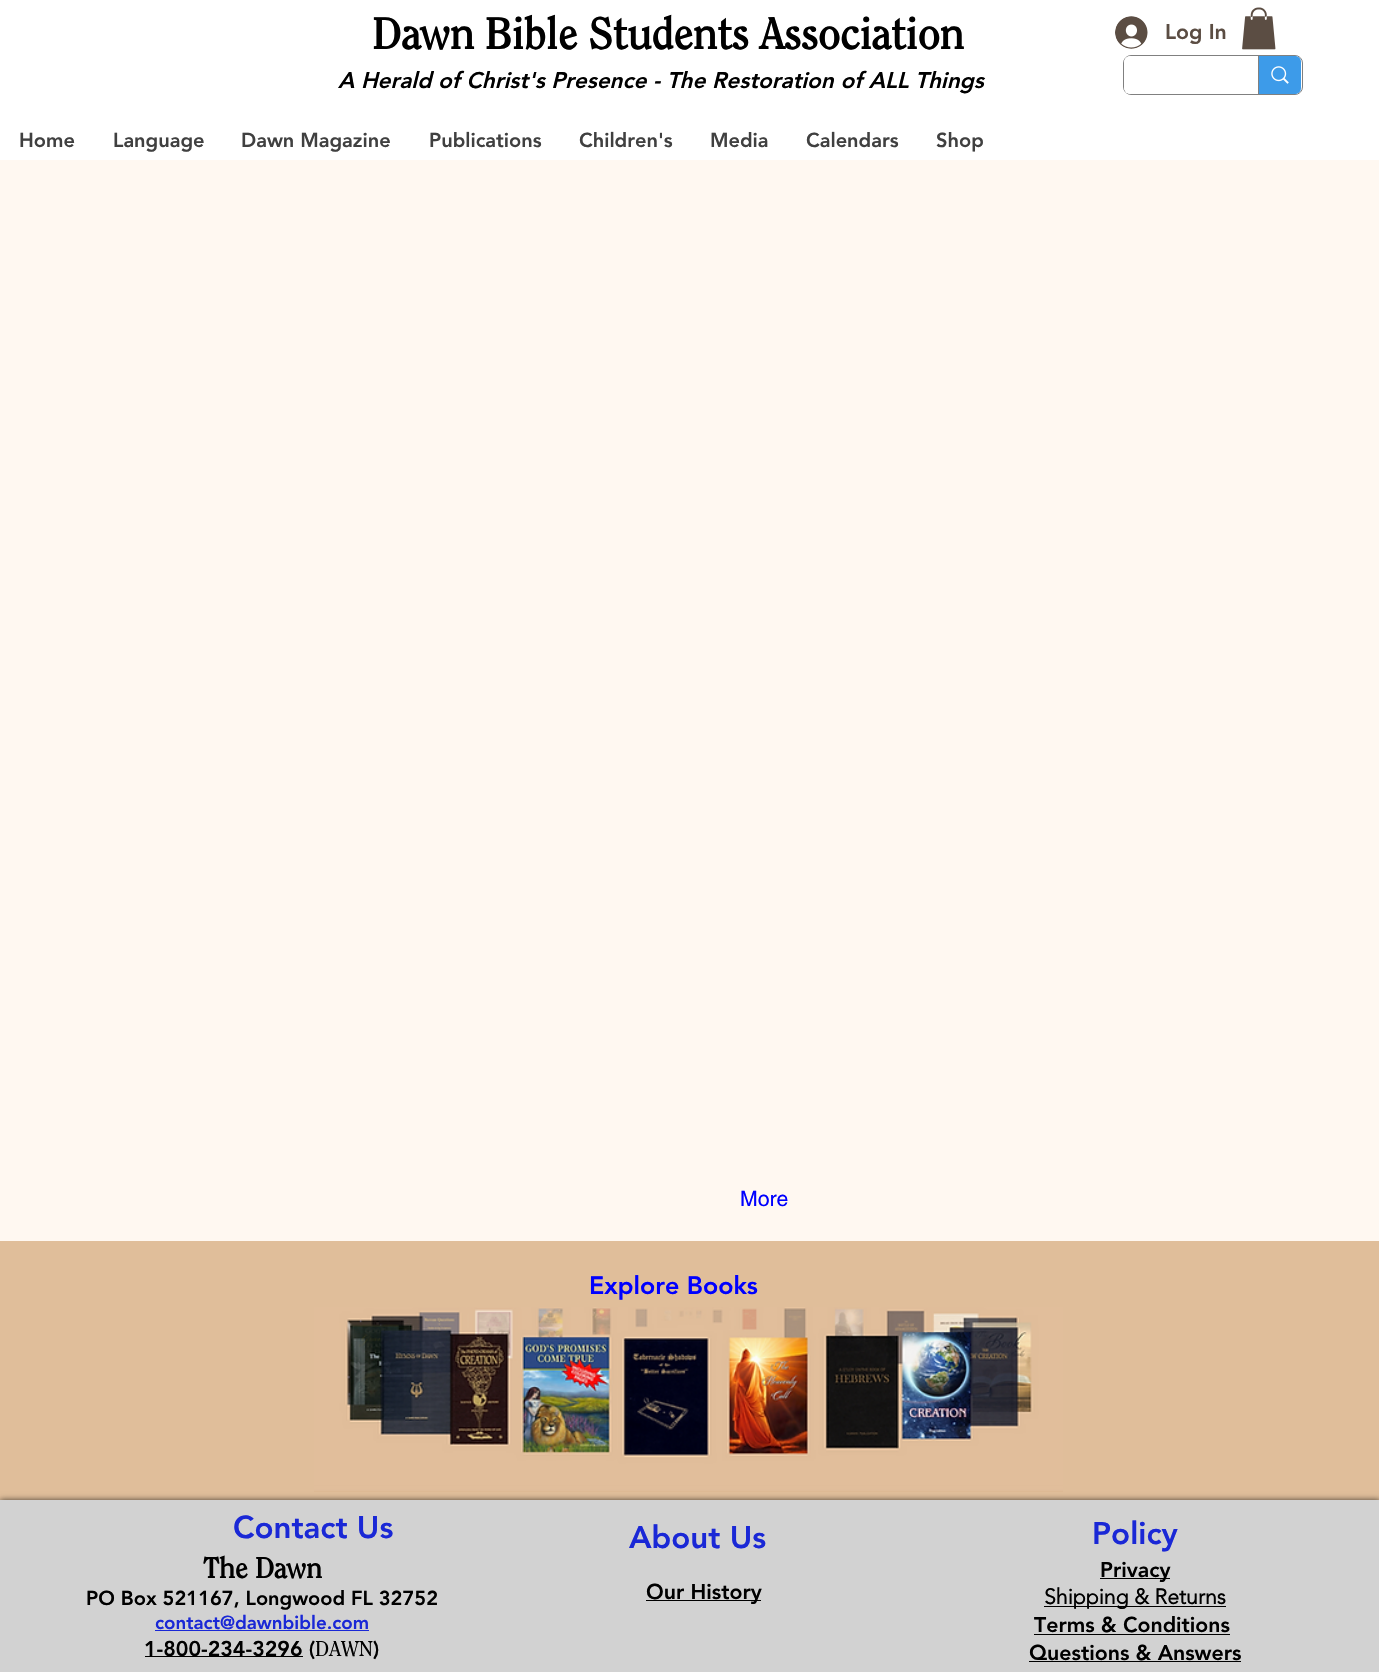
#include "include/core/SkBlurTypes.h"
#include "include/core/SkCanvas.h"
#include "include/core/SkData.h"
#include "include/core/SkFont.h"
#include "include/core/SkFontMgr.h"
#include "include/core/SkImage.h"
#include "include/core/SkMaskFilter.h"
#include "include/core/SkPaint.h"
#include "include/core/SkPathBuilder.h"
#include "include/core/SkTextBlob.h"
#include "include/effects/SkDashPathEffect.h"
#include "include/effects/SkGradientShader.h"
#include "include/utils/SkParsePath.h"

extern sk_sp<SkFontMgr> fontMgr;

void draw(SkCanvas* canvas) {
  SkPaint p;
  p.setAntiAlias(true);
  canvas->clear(SkColorSetRGB(255, 248, 241));
  p.setColor(SK_ColorWHITE);
  canvas->drawRect(SkRect::MakeLTRB(0, 0, 1379, 160), p);
  canvas->drawImageRect(SkImages::DeferredFromEncodedData(SkData::MakeFromFileName("images/1.png")), SkRect::MakeLTRB(1115, 16, 1148, 49), SkSamplingOptions());
  canvas->drawImageRect(SkImages::DeferredFromEncodedData(SkData::MakeFromFileName("images/2.png")), SkRect::MakeLTRB(1242, 7, 1276, 50), SkSamplingOptions());
  p.setStyle(SkPaint::kStroke_Style);
  p.setStrokeWidth(1);
  p.setColor(SkColorSetRGB(128, 128, 128));
  canvas->drawRoundRect(SkRect::MakeLTRB(1123.5f, 55.5f, 1302.5f, 94.5f), 7.5f, 7.5f, p);
  p.setStyle(SkPaint::kFill_Style);
  p.setColor(SK_ColorWHITE);
  canvas->drawRoundRect(SkRect::MakeLTRB(1124, 56, 1301, 94), 6, 6, p);
  p.setColor(SkColorSetRGB(61, 155, 233));
  canvas->drawPath(SkPathBuilder().moveTo(1258, 56).lineTo(1295, 56).cubicTo(1298.5f, 56, 1301, 58.5f, 1301, 62).lineTo(1301, 88).cubicTo(1301, 91.5f, 1298.5f, 94, 1295, 94).lineTo(1258, 94).close().detach(), p);
  p.setColor(SkColorSetRGB(128, 128, 128));
  canvas->drawRect(SkRect::MakeLTRB(1258, 56, 1259, 94), p);
  canvas->drawImageRect(SkImages::DeferredFromEncodedData(SkData::MakeFromFileName("images/3.png")), SkRect::MakeLTRB(1271, 66, 1289, 84), SkSamplingOptions());
  p.setColor(SkColorSetRGB(224, 190, 154));
  canvas->drawRect(SkRect::MakeLTRB(0, 1241, 1379, 1500), p);
  canvas->drawImageRect(SkImages::DeferredFromEncodedData(SkData::MakeFromFileName("images/4.png")), SkRect::MakeLTRB(314, 1307, 1063, 1492), SkSamplingOptions());
  p.setColor(SkColorSetARGB(179, 0, 0, 0));
  p.setMaskFilter(SkMaskFilter::MakeBlur(kNormal_SkBlurStyle, 3));
  canvas->drawRect(SkRect::MakeLTRB(0, 1500, 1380, 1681), p);
  p.setMaskFilter(nullptr);
  p.setColor(SkColorSetRGB(210, 210, 210));
  canvas->drawRect(SkRect::MakeLTRB(0, 1500, 1379, 1672), p);
  p.setColor(SkColorSetRGB(26, 40, 214));
  canvas->drawRect(SkRect::MakeLTRB(155, 1630, 369, 1631), p);
  p.setColor(SK_ColorBLACK);
  canvas->drawRect(SkRect::MakeLTRB(145, 1656, 303, 1657), p);
  canvas->drawRect(SkRect::MakeLTRB(646, 1600, 761, 1601), p);
  canvas->drawRect(SkRect::MakeLTRB(1100, 1578, 1170, 1579), p);
  canvas->drawRect(SkRect::MakeLTRB(1044, 1606, 1226, 1607), p);
  canvas->drawRect(SkRect::MakeLTRB(1034, 1634, 1230, 1635), p);
  canvas->drawRect(SkRect::MakeLTRB(1029, 1661, 1241, 1662), p);
  SkFont font1(fontMgr->matchFamilyStyle("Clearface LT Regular", SkFontStyle::Bold()), 43.75f);
  font1.setSubpixel(true);
  canvas->drawString("Dawn Bible Students Association", 372, 49, font1, p);
  SkFont font2(fontMgr->matchFamilyStyle("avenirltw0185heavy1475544", SkFontStyle(900, SkFontStyle::kNormal_Width, SkFontStyle::kItalic_Slant)), 22.5f);
  font2.setSubpixel(true);
  canvas->drawString("A Herald of Christ's Presence - The Restoration of ALL Things", 338, 88, font2, p);
  SkFont font3(fontMgr->matchFamilyStyle("avenirltw0185heavy1475544", SkFontStyle(900, SkFontStyle::kNormal_Width, SkFontStyle::kUpright_Slant)), 21.25f);
  font3.setSubpixel(true);
  p.setColor(SkColorSetRGB(91, 77, 67));
  canvas->drawString("Log In", 1165, 39, font3, p);
  SkFont font4(fontMgr->matchFamilyStyle("avenirltw0185heavy1475544", SkFontStyle(900, SkFontStyle::kNormal_Width, SkFontStyle::kUpright_Slant)), 20);
  font4.setSubpixel(true);
  p.setColor(SkColorSetRGB(64, 64, 64));
  canvas->drawString("Home", 19, 147, font4, p);
  canvas->drawString("Language", 113, 147, font4, p);
  canvas->drawString("Dawn Magazine", 241, 147, font4, p);
  canvas->drawString("Publications", 429, 147, font4, p);
  canvas->drawString("Children's", 579, 147, font4, p);
  canvas->drawString("Media", 710, 147, font4, p);
  canvas->drawString("Calendars", 806, 147, font4, p);
  canvas->drawString("Shop", 936, 147, font4, p);
  SkFont font5(fontMgr->matchFamilyStyle("helvetica", SkFontStyle::Normal()), 21.25f);
  font5.setSubpixel(true);
  p.setColor(SkColorSetRGB(0, 0, 255));
  canvas->drawString("More", 740, 1206, font5, p);
  SkFont font6(fontMgr->matchFamilyStyle("avenirltw0185heavy1475544", SkFontStyle(900, SkFontStyle::kNormal_Width, SkFontStyle::kUpright_Slant)), 25);
  font6.setSubpixel(true);
  canvas->drawString("Explore Books", 589, 1294, font6, p);
  SkFont font7(fontMgr->matchFamilyStyle("avenirltw0185heavy1475544", SkFontStyle(900, SkFontStyle::kNormal_Width, SkFontStyle::kUpright_Slant)), 31.25f);
  font7.setSubpixel(true);
  p.setColor(SkColorSetRGB(26, 40, 214));
  canvas->drawString("Contact Us", 233, 1538, font7, p);
  SkFont font8(fontMgr->matchFamilyStyle("Clearface LT Regular", SkFontStyle::Bold()), 28.75f);
  font8.setSubpixel(true);
  p.setColor(SK_ColorBLACK);
  canvas->drawString("The Dawn", 203, 1578, font8, p);
  canvas->drawString("PO Box 521167, Longwood FL 32752", 86, 1605, font4, p);
  SkFont font9(fontMgr->matchFamilyStyle("avenirltw0185heavy1475544", SkFontStyle(900, SkFontStyle::kNormal_Width, SkFontStyle::kUpright_Slant)), 18.75f);
  font9.setSubpixel(true);
  p.setColor(SkColorSetRGB(26, 40, 214));
  canvas->drawString("contact@dawnbible.com", 155, 1629, font9, p);
  p.setColor(SK_ColorBLACK);
  canvas->drawString("1-800-234-3296 (", 144, 1656, font3, p);
  SkFont font10(fontMgr->matchFamilyStyle("Clearface LT Regular", SkFontStyle::Normal()), 21.25f);
  font10.setSubpixel(true);
  canvas->drawString("DAWN", 315, 1656, font10, p);
  canvas->drawString(")", 373, 1656, font3, p);
  p.setColor(SkColorSetRGB(26, 40, 214));
  canvas->drawString("About Us", 629, 1548, font7, p);
  p.setColor(SK_ColorBLACK);
  canvas->drawString("Our History", 646, 1599, font3, p);
  p.setColor(SkColorSetRGB(26, 40, 214));
  canvas->drawString("Policy", 1092, 1544, font7, p);
  p.setColor(SK_ColorBLACK);
  canvas->drawString("Privacy", 1100, 1577, font3, p);
  SkFont font11(fontMgr->matchFamilyStyle("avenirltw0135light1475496", SkFontStyle::Bold()), 21.25f);
  font11.setSubpixel(true);
  canvas->drawString("Shipping & Returns", 1044, 1604, font11, p);
  canvas->drawString("Terms & Conditions", 1034, 1632, font3, p);
  canvas->drawString("Questions & Answers", 1029, 1660, font3, p);
}
